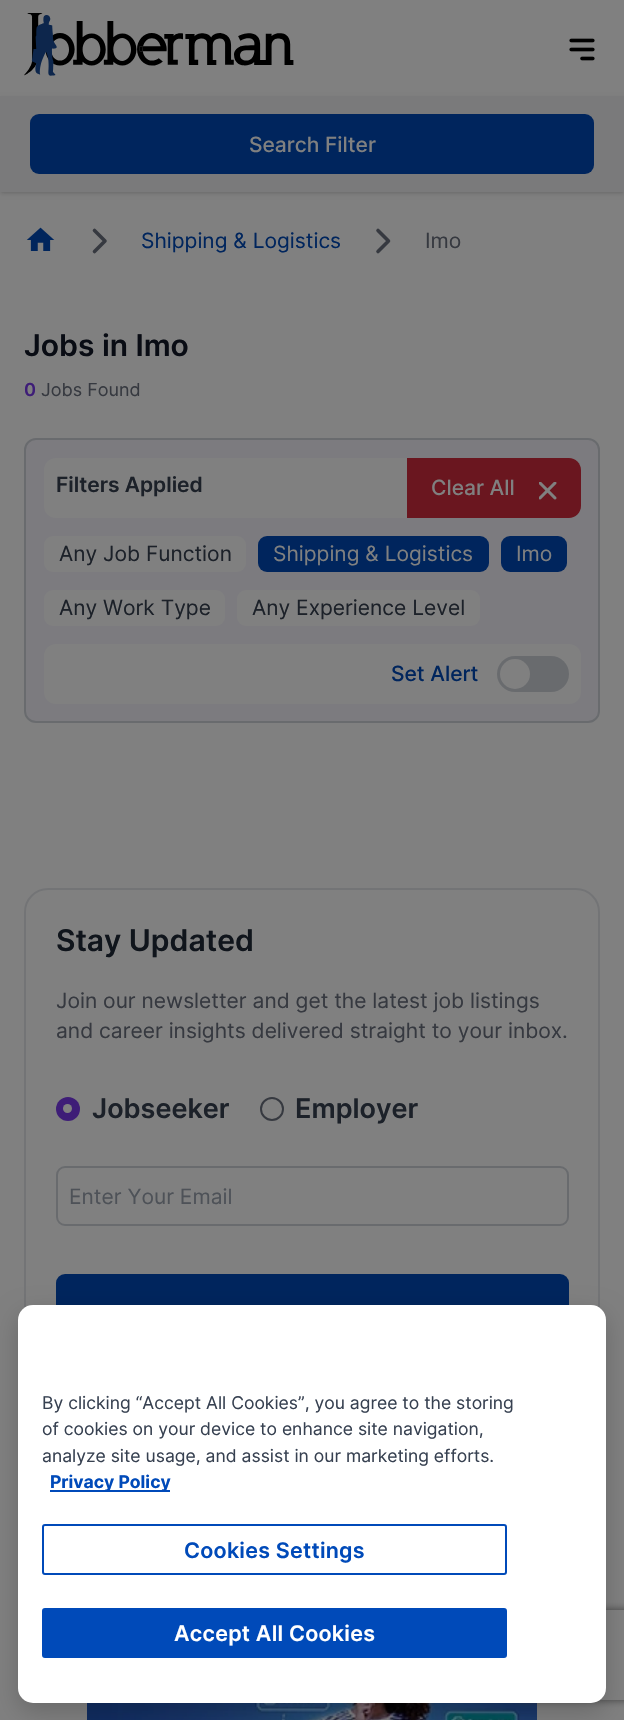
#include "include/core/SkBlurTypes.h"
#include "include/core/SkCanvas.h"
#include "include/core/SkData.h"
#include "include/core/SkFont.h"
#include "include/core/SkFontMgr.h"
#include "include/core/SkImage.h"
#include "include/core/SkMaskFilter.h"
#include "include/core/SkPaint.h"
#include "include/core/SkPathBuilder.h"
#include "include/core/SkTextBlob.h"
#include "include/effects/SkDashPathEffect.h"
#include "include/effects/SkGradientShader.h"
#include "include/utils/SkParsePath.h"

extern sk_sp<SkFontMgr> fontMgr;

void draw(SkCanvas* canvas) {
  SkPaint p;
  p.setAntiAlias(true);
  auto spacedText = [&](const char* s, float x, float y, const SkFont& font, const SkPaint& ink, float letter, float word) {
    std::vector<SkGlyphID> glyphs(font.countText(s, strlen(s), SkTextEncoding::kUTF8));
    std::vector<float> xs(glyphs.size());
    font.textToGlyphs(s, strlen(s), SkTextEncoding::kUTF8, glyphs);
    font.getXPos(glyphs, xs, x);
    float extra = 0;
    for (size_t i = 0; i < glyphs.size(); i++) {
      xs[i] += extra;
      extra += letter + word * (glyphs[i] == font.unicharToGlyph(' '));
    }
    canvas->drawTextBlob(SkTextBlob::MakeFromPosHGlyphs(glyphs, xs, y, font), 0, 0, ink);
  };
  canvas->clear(SkColorSetRGB(128, 128, 128));
  canvas->drawImageRect(SkImages::DeferredFromEncodedData(SkData::MakeFromFileName("images/1.png")), SkRect::MakeLTRB(24, 13, 294, 76), SkSamplingOptions());
  canvas->drawImageRect(SkImages::DeferredFromEncodedData(SkData::MakeFromFileName("images/2.png")), SkRect::MakeLTRB(569, 38, 595, 61), SkSamplingOptions());
  p.setColor(SkColorSetARGB(26, 0, 0, 0));
  p.setMaskFilter(SkMaskFilter::MakeBlur(kNormal_SkBlurStyle, 1.5f));
  canvas->drawRect(SkRect::MakeLTRB(2, 99, 623, 192), p);
  p.setMaskFilter(nullptr);
  p.setMaskFilter(SkMaskFilter::MakeBlur(kNormal_SkBlurStyle, 2));
  canvas->drawRect(SkRect::MakeLTRB(0, 98, 624, 194), p);
  p.setMaskFilter(nullptr);
  p.setColor(SkColorSetRGB(122, 122, 123));
  canvas->drawRect(SkRect::MakeLTRB(0, 96, 624, 192), p);
  p.setColor(SkColorSetRGB(0, 37, 93));
  canvas->drawRoundRect(SkRect::MakeLTRB(30, 114, 594, 174), 9, 9, p);
  canvas->drawImageRect(SkImages::DeferredFromEncodedData(SkData::MakeFromFileName("images/3.png")), SkRect::MakeLTRB(26, 227, 55, 251), SkSamplingOptions());
  p.setStyle(SkPaint::kStroke_Style);
  p.setStrokeWidth(3.6f);
  p.setStrokeCap(SkPaint::kRound_Cap);
  p.setStrokeJoin(SkPaint::kRound_Join);
  p.setColor(SkColorSetRGB(54, 57, 64));
  canvas->drawPath(SkPathBuilder().moveTo(94.5f, 230.5f).lineTo(105, 241).lineTo(94.5f, 251.5f).detach(), p);
  canvas->drawPath(SkPathBuilder().moveTo(378, 230.5f).lineTo(388.5f, 241).lineTo(378, 251.5f).detach(), p);
  p.setStyle(SkPaint::kFill_Style);
  p.setColor(SkColorSetRGB(124, 123, 127));
  canvas->drawRoundRect(SkRect::MakeLTRB(25, 439, 599, 722), 11, 11, p);
  p.setStyle(SkPaint::kStroke_Style);
  p.setStrokeWidth(2);
  p.setStrokeCap(SkPaint::kButt_Cap);
  p.setStrokeJoin(SkPaint::kMiter_Join);
  p.setColor(SkColorSetRGB(105, 107, 110));
  canvas->drawRoundRect(SkRect::MakeLTRB(25, 439, 599, 722), 11, 11, p);
  p.setStyle(SkPaint::kFill_Style);
  p.setColor(SkColorSetRGB(128, 128, 128));
  canvas->drawRoundRect(SkRect::MakeLTRB(44, 458, 581, 518), 12, 12, p);
  p.setColor(SkColorSetRGB(106, 22, 31));
  canvas->drawPath(SkPathBuilder().moveTo(407, 458).lineTo(569, 458).cubicTo(575.5f, 458, 581, 463.5f, 581, 470).lineTo(581, 506).cubicTo(581, 512.5f, 575.5f, 518, 569, 518).lineTo(407, 518).close().detach(), p);
  canvas->drawImageRect(SkImages::DeferredFromEncodedData(SkData::MakeFromFileName("images/4.png")), SkRect::MakeLTRB(539, 482, 557, 500), SkSamplingOptions());
  p.setColor(SkColorSetRGB(128, 128, 128));
  canvas->drawRoundRect(SkRect::MakeLTRB(44, 536, 246, 572), 9, 9, p);
  p.setColor(SkColorSetRGB(0, 37, 93));
  canvas->drawRoundRect(SkRect::MakeLTRB(258, 536, 489, 572), 9, 9, p);
  canvas->drawRoundRect(SkRect::MakeLTRB(501, 536, 567, 572), 9, 9, p);
  p.setColor(SkColorSetRGB(128, 128, 128));
  canvas->drawRoundRect(SkRect::MakeLTRB(44, 590, 225, 626), 9, 9, p);
  canvas->drawRoundRect(SkRect::MakeLTRB(237, 590, 480, 626), 9, 9, p);
  canvas->drawRoundRect(SkRect::MakeLTRB(44, 644, 581, 704), 12, 12, p);
  p.setColor(SkColorSetRGB(105, 107, 110));
  canvas->drawRoundRect(SkRect::MakeLTRB(497, 656, 569, 692), 18, 18, p);
  p.setColor(SkColorSetRGB(128, 128, 128));
  canvas->drawCircle(515, 674, 15, p);
  p.setStyle(SkPaint::kStroke_Style);
  p.setColor(SkColorSetRGB(115, 116, 118));
  canvas->drawRoundRect(SkRect::MakeLTRB(25, 889, 599, 1460), 23, 23, p);
  p.setStyle(SkPaint::kFill_Style);
  p.setColor(SkColorSetRGB(62, 29, 119));
  canvas->drawCircle(68, 1109, 12, p);
  p.setColor(SkColorSetRGB(128, 128, 128));
  canvas->drawCircle(67.5f, 1108.5f, 4.5f, p);
  p.setStyle(SkPaint::kStroke_Style);
  p.setColor(SkColorSetRGB(54, 57, 64));
  canvas->drawCircle(272, 1109, 11, p);
  p.setColor(SkColorSetRGB(105, 107, 110));
  canvas->drawRoundRect(SkRect::MakeLTRB(57, 1167, 568, 1225), 8, 8, p);
  p.setStyle(SkPaint::kFill_Style);
  p.setColor(SkColorSetRGB(0, 37, 93));
  canvas->drawRoundRect(SkRect::MakeLTRB(56, 1274, 569, 1334), 9, 9, p);
  canvas->drawImageRect(SkImages::DeferredFromEncodedData(SkData::MakeFromFileName("images/5.png")), SkRect::MakeLTRB(87, 1703, 537, 1720), SkSamplingOptions());
  canvas->save();
  canvas->clipPath(SkPathBuilder(SkPathFillType::kEvenOdd).moveTo(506, 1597).lineTo(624, 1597).lineTo(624, 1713).lineTo(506, 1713).close().moveTo(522, 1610).lineTo(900, 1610).cubicTo(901.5f, 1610, 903, 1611.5f, 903, 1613).lineTo(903, 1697).cubicTo(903, 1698.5f, 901.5f, 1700, 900, 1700).lineTo(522, 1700).cubicTo(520.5f, 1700, 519, 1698.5f, 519, 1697).lineTo(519, 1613).cubicTo(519, 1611.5f, 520.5f, 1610, 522, 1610).close().detach(), true);
  p.setColor(SkColorSetRGB(64, 64, 64));
  p.setMaskFilter(SkMaskFilter::MakeBlur(kNormal_SkBlurStyle, 4));
  canvas->drawRoundRect(SkRect::MakeLTRB(519, 1610, 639, 1700), 3, 3, p);
  p.setMaskFilter(nullptr);
  canvas->restore();
  p.setColor(SkColorSetARGB(46, 0, 0, 0));
  p.setMaskFilter(SkMaskFilter::MakeBlur(kNormal_SkBlurStyle, 12));
  canvas->drawRoundRect(SkRect::MakeLTRB(18, 1314, 606, 1712), 15, 15, p);
  p.setMaskFilter(nullptr);
  p.setColor(SK_ColorWHITE);
  canvas->drawRoundRect(SkRect::MakeLTRB(18, 1305, 606, 1703), 15, 15, p);
  p.setColor(SkColorSetRGB(0, 74, 185));
  canvas->drawRect(SkRect::MakeLTRB(50, 1490, 170, 1492), p);
  p.setStyle(SkPaint::kStroke_Style);
  canvas->drawRoundRect(SkRect::MakeLTRB(43, 1525, 506, 1574), 2, 2, p);
  p.setStyle(SkPaint::kFill_Style);
  canvas->drawRoundRect(SkRect::MakeLTRB(43, 1609, 506, 1657), 2, 2, p);
  p.setStyle(SkPaint::kStroke_Style);
  canvas->drawRoundRect(SkRect::MakeLTRB(43, 1609, 506, 1657), 2, 2, p);
  SkFont font1(fontMgr->matchFamilyStyle("Inter", SkFontStyle(500, SkFontStyle::kNormal_Width, SkFontStyle::kUpright_Slant)), 21);
  font1.setSubpixel(true);
  p.setStyle(SkPaint::kFill_Style);
  p.setColor(SkColorSetRGB(128, 128, 128));
  canvas->drawString("Search Filter", 249, 152, font1, p);
  SkFont font2(fontMgr->matchFamilyStyle("Inter", SkFontStyle::Normal()), 21);
  font2.setSubpixel(true);
  p.setColor(SkColorSetRGB(0, 37, 93));
  canvas->drawString("Shipping & Logistics", 141, 248, font2, p);
  p.setColor(SkColorSetRGB(54, 57, 64));
  canvas->drawString("Imo", 425, 248, font2, p);
  SkFont font3(fontMgr->matchFamilyStyle("Inter", SkFontStyle(600, SkFontStyle::kNormal_Width, SkFontStyle::kUpright_Slant)), 30);
  font3.setSubpixel(true);
  p.setColor(SkColorSetRGB(9, 12, 20));
  canvas->drawString("Jobs in Imo", 24, 356, font3, p);
  SkFont font4(fontMgr->matchFamilyStyle("Inter", SkFontStyle(600, SkFontStyle::kNormal_Width, SkFontStyle::kUpright_Slant)), 18);
  font4.setSubpixel(true);
  p.setColor(SkColorSetRGB(62, 29, 119));
  canvas->drawString("0", 24, 396, font4, p);
  SkFont font5(fontMgr->matchFamilyStyle("Inter", SkFontStyle::Normal()), 18);
  font5.setSubpixel(true);
  p.setColor(SkColorSetRGB(54, 57, 64));
  canvas->drawString("Jobs Found", 41, 396, font5, p);
  SkFont font6(fontMgr->matchFamilyStyle("Inter", SkFontStyle(600, SkFontStyle::kNormal_Width, SkFontStyle::kUpright_Slant)), 21);
  font6.setSubpixel(true);
  p.setColor(SkColorSetRGB(28, 33, 41));
  canvas->drawString("Filters Applied", 56, 492, font6, p);
  p.setColor(SkColorSetRGB(128, 128, 128));
  canvas->drawString("Clear All", 431, 495, font1, p);
  p.setColor(SkColorSetRGB(28, 33, 41));
  canvas->drawString("Any Job Function", 59, 561, font2, p);
  p.setColor(SkColorSetRGB(128, 128, 128));
  canvas->drawString("Shipping & Logistics", 273, 561, font2, p);
  canvas->drawString("Imo", 516, 561, font2, p);
  p.setColor(SkColorSetRGB(28, 33, 41));
  canvas->drawString("Any Work Type", 59, 615, font2, p);
  canvas->drawString("Any Experience Level", 252, 615, font2, p);
  p.setColor(SkColorSetRGB(0, 37, 93));
  canvas->drawString("Set Alert", 391, 681, font1, p);
  p.setColor(SkColorSetRGB(16, 21, 28));
  canvas->drawString("Stay Updated", 56, 951, font3, p);
  p.setColor(SkColorSetRGB(54, 57, 64));
  canvas->drawString("Join our newsletter and get the latest job listings", 56, 1008, font2, p);
  canvas->drawString("and career insights delivered straight to your inbox.", 56, 1038, font2, p);
  SkFont font7(fontMgr->matchFamilyStyle("Inter", SkFontStyle(600, SkFontStyle::kNormal_Width, SkFontStyle::kUpright_Slant)), 27);
  font7.setSubpixel(true);
  p.setColor(SkColorSetRGB(28, 33, 41));
  canvas->drawString("Jobseeker", 92, 1118, font7, p);
  canvas->drawString("Employer", 295, 1118, font7, p);
  p.setColor(SkColorSetRGB(78, 82, 88));
  canvas->drawString("Enter Your Email", 69, 1204, font2, p);
  SkFont font8(fontMgr->matchFamilyStyle("Inter", SkFontStyle::Normal()), 17.55f);
  font8.setSubpixel(true);
  p.setColor(SkColorSetRGB(55, 65, 81));
  canvas->drawString("By clicking “Accept All Cookies”, you agree to the storing", 42, 1409, font8, p);
  canvas->drawString("of cookies on your device to enhance site navigation,", 42, 1435, font8, p);
  canvas->drawString("analyze site usage, and assist in our marketing efforts.", 42, 1462, font8, p);
  SkFont font9(fontMgr->matchFamilyStyle("Inter", SkFontStyle::Bold()), 17.55f);
  font9.setSubpixel(true);
  p.setColor(SkColorSetRGB(0, 74, 185));
  canvas->drawString("Privacy Policy", 50, 1488, font9, p);
  SkFont font10(fontMgr->matchFamilyStyle("Inter", SkFontStyle(600, SkFontStyle::kNormal_Width, SkFontStyle::kUpright_Slant)), 21.5f);
  font10.setSubpixel(true);
  spacedText("Cookies Settings", 184, 1558, font10, p, 0.25f, 0);
  p.setColor(SK_ColorWHITE);
  spacedText("Accept All Cookies", 174, 1641, font10, p, 0.25f, 0);
}
